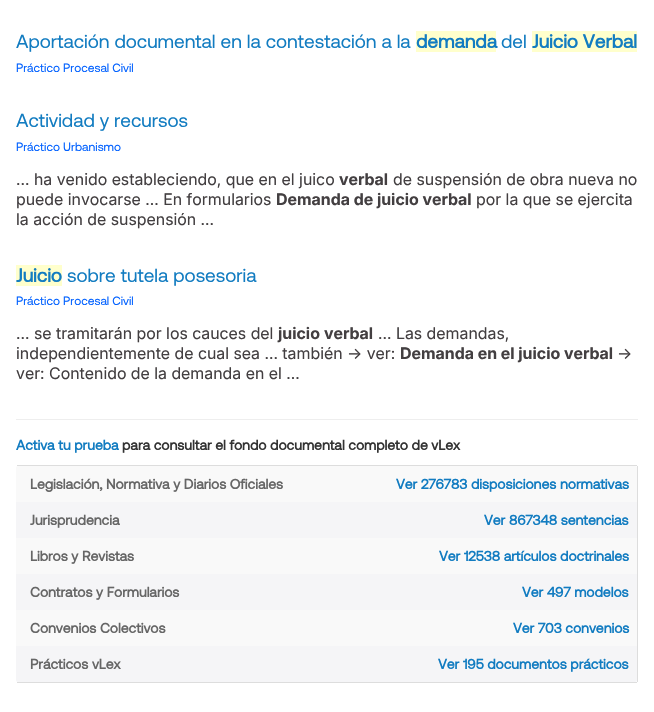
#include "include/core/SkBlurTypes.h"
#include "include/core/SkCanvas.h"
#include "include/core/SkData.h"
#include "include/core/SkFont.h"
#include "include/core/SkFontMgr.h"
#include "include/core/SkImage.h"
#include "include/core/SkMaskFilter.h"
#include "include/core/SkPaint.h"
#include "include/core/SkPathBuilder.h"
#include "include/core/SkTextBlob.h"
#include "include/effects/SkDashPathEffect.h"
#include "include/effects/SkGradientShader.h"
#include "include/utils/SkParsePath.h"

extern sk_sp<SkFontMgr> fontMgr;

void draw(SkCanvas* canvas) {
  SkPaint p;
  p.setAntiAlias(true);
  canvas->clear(SK_ColorWHITE);
  p.setColor(SkColorSetRGB(238, 238, 238));
  canvas->drawRect(SkRect::MakeLTRB(16, 419, 638, 420), p);
  p.setColor(SkColorSetRGB(255, 255, 204));
  canvas->drawRect(SkRect::MakeLTRB(416, 31, 496, 52), p);
  canvas->drawRect(SkRect::MakeLTRB(532, 31, 637, 52), p);
  canvas->drawRect(SkRect::MakeLTRB(16, 265, 62, 286), p);
  p.setColor(SkColorSetRGB(221, 221, 221));
  canvas->drawRect(SkRect::MakeLTRB(17, 465, 637, 466), p);
  canvas->drawRect(SkRect::MakeLTRB(637, 466, 638, 682), p);
  canvas->drawRect(SkRect::MakeLTRB(17, 682, 637, 683), p);
  p.setColor(SkColorSetRGB(249, 249, 249));
  canvas->drawPath(SkPathBuilder().moveTo(18, 466).lineTo(338, 466).lineTo(338, 502).lineTo(16, 502).lineTo(16, 468).cubicTo(16, 467, 17, 466, 18, 466).close().detach(), p);
  canvas->drawPath(SkPathBuilder().moveTo(338, 466).lineTo(635, 466).cubicTo(636, 466, 637, 467, 637, 468).lineTo(637, 502).lineTo(338, 502).close().detach(), p);
  p.setColor(SkColorSetRGB(245, 245, 247));
  canvas->drawRect(SkRect::MakeLTRB(16, 502, 637, 538), p);
  p.setColor(SkColorSetRGB(249, 249, 249));
  canvas->drawRect(SkRect::MakeLTRB(16, 538, 637, 574), p);
  p.setColor(SkColorSetRGB(245, 245, 247));
  canvas->drawRect(SkRect::MakeLTRB(16, 574, 637, 610), p);
  p.setColor(SkColorSetRGB(249, 249, 249));
  canvas->drawRect(SkRect::MakeLTRB(16, 610, 637, 646), p);
  p.setColor(SkColorSetRGB(245, 245, 247));
  canvas->drawPath(SkPathBuilder().moveTo(16, 646).lineTo(338, 646).lineTo(338, 682).lineTo(18, 682).cubicTo(17, 682, 16, 681, 16, 680).close().detach(), p);
  canvas->drawPath(SkPathBuilder().moveTo(338, 646).lineTo(637, 646).lineTo(637, 680).cubicTo(637, 681, 636, 682, 635, 682).lineTo(338, 682).close().detach(), p);
  SkFont font1(fontMgr->matchFamilyStyle("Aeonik", SkFontStyle::Normal()), 19);
  font1.setSubpixel(true);
  p.setColor(SkColorSetRGB(18, 124, 193));
  canvas->drawString("Aportación documental en la contestación a la", 16, 48, font1, p);
  SkFont font2(fontMgr->matchFamilyStyle("Aeonik", SkFontStyle::Bold()), 19);
  font2.setSubpixel(true);
  canvas->drawString("demanda", 416, 48, font2, p);
  canvas->drawString("del", 501, 48, font1, p);
  canvas->drawString("Juicio Verbal", 532, 48, font2, p);
  SkFont font3(fontMgr->matchFamilyStyle("Aeonik", SkFontStyle::Normal()), 12);
  font3.setSubpixel(true);
  p.setColor(SkColorSetRGB(1, 97, 255));
  canvas->drawString("Práctico Procesal Civil", 16, 72, font3, p);
  p.setColor(SkColorSetRGB(18, 124, 193));
  canvas->drawString("Actividad y recursos", 16, 127, font1, p);
  p.setColor(SkColorSetRGB(1, 97, 255));
  canvas->drawString("Práctico Urbanismo", 16, 151, font3, p);
  SkFont font4(fontMgr->matchFamilyStyle("Inter", SkFontStyle::Normal()), 16);
  font4.setSubpixel(true);
  p.setColor(SkColorSetRGB(67, 63, 65));
  canvas->drawString("... ha venido estableciendo, que en el juico", 16, 185, font4, p);
  SkFont font5(fontMgr->matchFamilyStyle("Inter", SkFontStyle::Bold()), 16);
  font5.setSubpixel(true);
  canvas->drawString("verbal", 339, 185, font5, p);
  canvas->drawString("de suspensión de obra nueva no", 393, 185, font4, p);
  canvas->drawString("puede invocarse ... En formularios", 16, 205, font4, p);
  canvas->drawString("Demanda de juicio verbal", 276, 205, font5, p);
  canvas->drawString("por la que se ejercita", 476, 205, font4, p);
  canvas->drawString("la acción de suspensión ...", 16, 225, font4, p);
  p.setColor(SkColorSetRGB(18, 124, 193));
  canvas->drawString("Juicio", 16, 282, font2, p);
  canvas->drawString("sobre tutela posesoria", 67, 282, font1, p);
  p.setColor(SkColorSetRGB(1, 97, 255));
  canvas->drawString("Práctico Procesal Civil", 16, 305, font3, p);
  p.setColor(SkColorSetRGB(67, 63, 65));
  canvas->drawString("... se tramitarán por los cauces del", 16, 339, font4, p);
  canvas->drawString("juicio", 278, 339, font5, p);
  canvas->drawString("verbal", 324, 339, font5, p);
  canvas->drawString("... Las demandas,", 378, 339, font4, p);
  canvas->drawString("independientemente de cual sea ... también → ver:", 16, 359, font4, p);
  canvas->drawString("Demanda en el juicio verbal", 400, 359, font5, p);
  canvas->drawString("→", 617, 359, font4, p);
  canvas->drawString("ver: Contenido de la demanda en el ...", 16, 379, font4, p);
  SkFont font6(fontMgr->matchFamilyStyle("Aeonik", SkFontStyle::Bold()), 14);
  font6.setSubpixel(true);
  p.setColor(SkColorSetRGB(18, 124, 193));
  canvas->drawString("Activa tu prueba", 16, 450, font6, p);
  p.setColor(SkColorSetRGB(51, 51, 51));
  canvas->drawString("para consultar el fondo documental completo de vLex", 122, 450, font6, p);
  p.setColor(SkColorSetRGB(102, 102, 102));
  canvas->drawString("Legislación, Normativa y Diarios Oficiales", 30, 489, font6, p);
  p.setColor(SkColorSetRGB(18, 124, 193));
  canvas->drawString("Ver 276783 disposiciones normativas", 396, 489, font6, p);
  p.setColor(SkColorSetRGB(102, 102, 102));
  canvas->drawString("Jurisprudencia", 30, 525, font6, p);
  p.setColor(SkColorSetRGB(18, 124, 193));
  canvas->drawString("Ver 867348 sentencias", 484, 525, font6, p);
  p.setColor(SkColorSetRGB(102, 102, 102));
  canvas->drawString("Libros y Revistas", 30, 561, font6, p);
  p.setColor(SkColorSetRGB(18, 124, 193));
  canvas->drawString("Ver 12538 artículos doctrinales", 439, 561, font6, p);
  p.setColor(SkColorSetRGB(102, 102, 102));
  canvas->drawString("Contratos y Formularios", 30, 597, font6, p);
  p.setColor(SkColorSetRGB(18, 124, 193));
  canvas->drawString("Ver 497 modelos", 522, 597, font6, p);
  p.setColor(SkColorSetRGB(102, 102, 102));
  canvas->drawString("Convenios Colectivos", 30, 633, font6, p);
  p.setColor(SkColorSetRGB(18, 124, 193));
  canvas->drawString("Ver 703 convenios", 513, 633, font6, p);
  p.setColor(SkColorSetRGB(102, 102, 102));
  canvas->drawString("Prácticos vLex", 30, 669, font6, p);
  p.setColor(SkColorSetRGB(18, 124, 193));
  canvas->drawString("Ver 195 documentos prácticos", 438, 669, font6, p);
}
